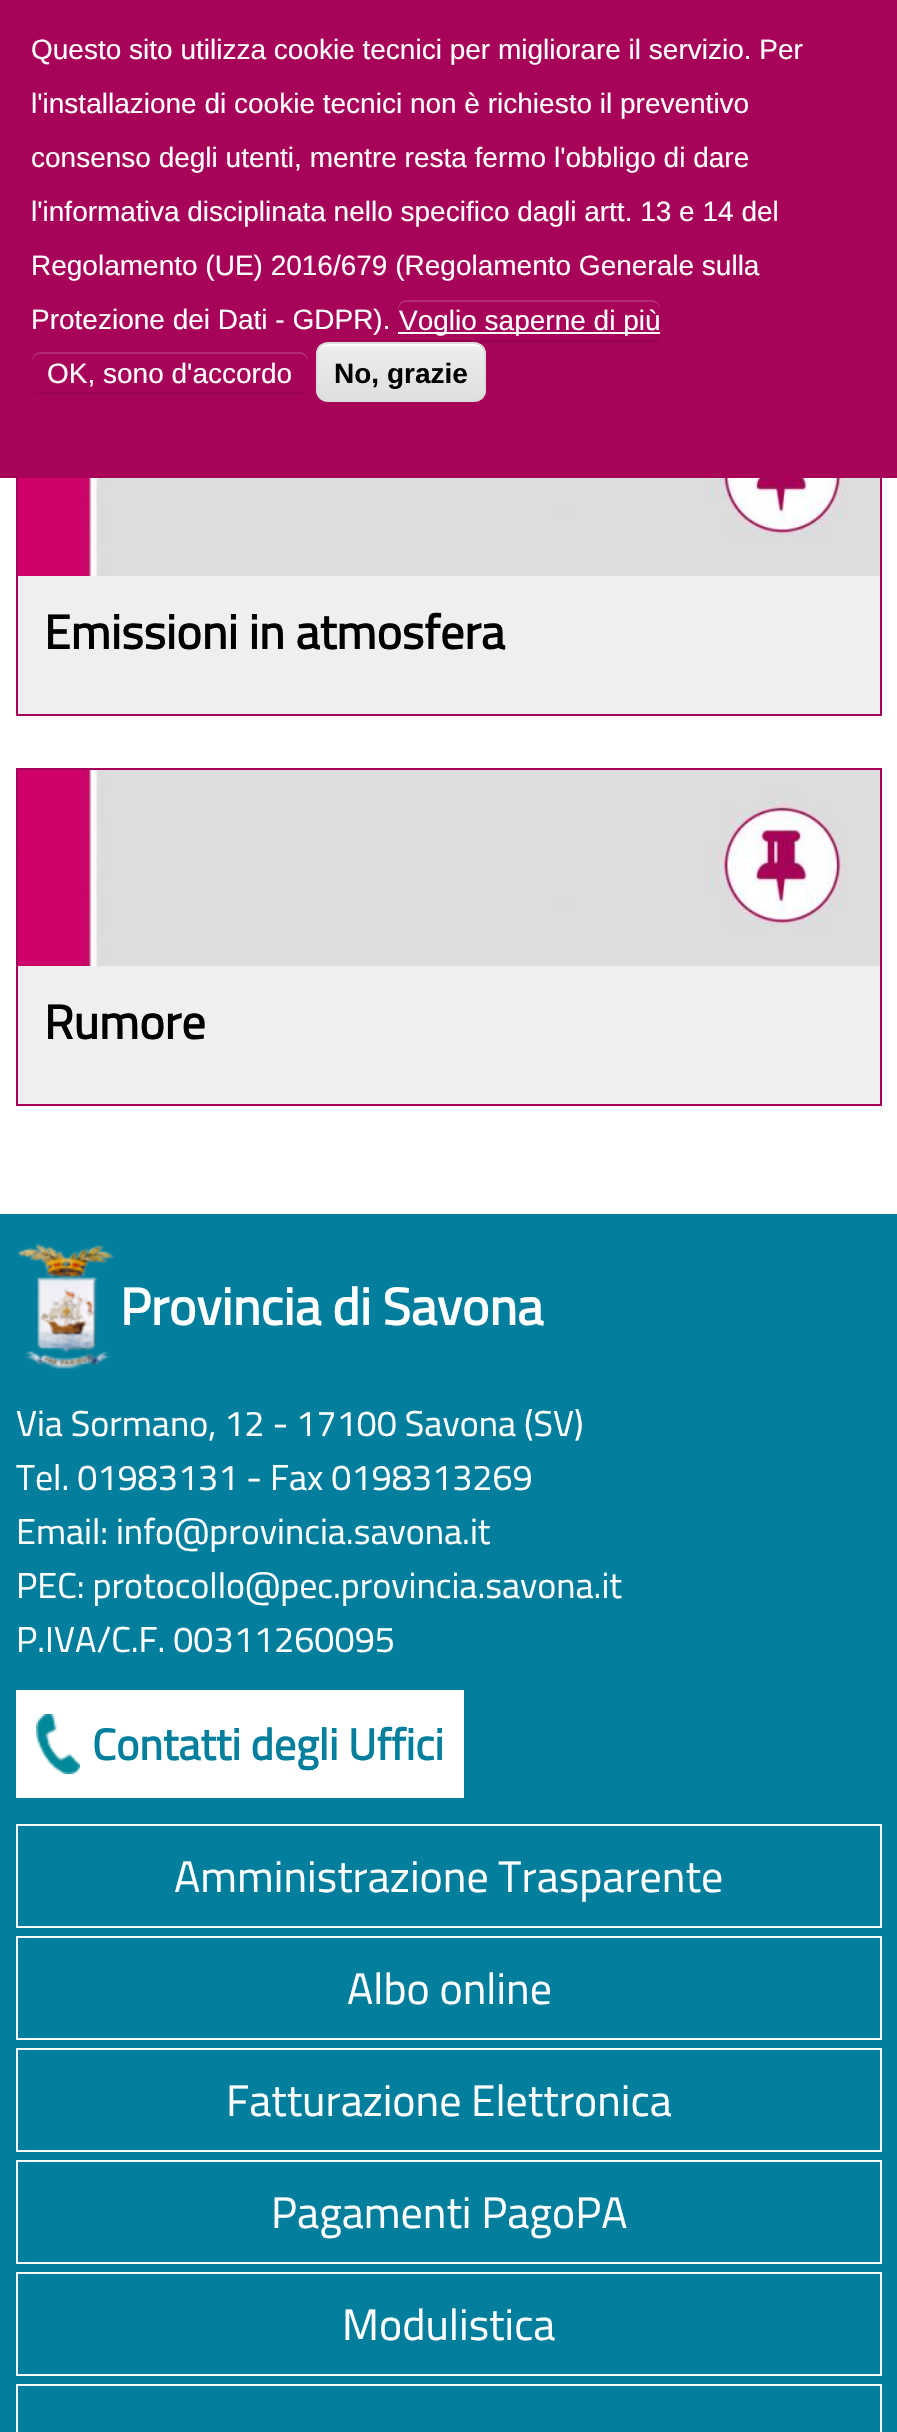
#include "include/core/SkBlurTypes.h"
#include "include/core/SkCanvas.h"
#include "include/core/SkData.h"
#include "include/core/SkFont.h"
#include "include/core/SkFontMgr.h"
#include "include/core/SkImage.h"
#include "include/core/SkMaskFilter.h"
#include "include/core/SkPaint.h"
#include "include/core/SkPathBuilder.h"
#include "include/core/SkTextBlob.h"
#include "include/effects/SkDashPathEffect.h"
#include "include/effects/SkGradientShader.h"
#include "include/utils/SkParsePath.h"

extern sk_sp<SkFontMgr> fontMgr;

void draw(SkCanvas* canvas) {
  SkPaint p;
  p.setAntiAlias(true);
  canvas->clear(SK_ColorWHITE);
  p.setColor(SkColorSetRGB(239, 239, 239));
  canvas->drawRect(SkRect::MakeLTRB(18, 576, 880, 714), p);
  p.setStyle(SkPaint::kStroke_Style);
  p.setStrokeWidth(2);
  p.setColor(SkColorSetRGB(167, 3, 88));
  canvas->drawRect(SkRect::MakeLTRB(17, 379, 881, 715), p);
  p.setStyle(SkPaint::kFill_Style);
  canvas->drawRect(SkRect::MakeLTRB(0, 0, 897, 478), p);
  canvas->save();
  canvas->clipPath(SkPathBuilder(SkPathFillType::kEvenOdd).moveTo(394, 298).lineTo(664, 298).lineTo(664, 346).lineTo(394, 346).close().moveTo(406, 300).lineTo(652, 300).cubicTo(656.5f, 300, 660, 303.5f, 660, 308).lineTo(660, 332).cubicTo(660, 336.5f, 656.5f, 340, 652, 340).lineTo(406, 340).cubicTo(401.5f, 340, 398, 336.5f, 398, 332).lineTo(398, 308).cubicTo(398, 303.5f, 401.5f, 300, 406, 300).close().detach(), true);
  p.setColor(SkColorSetARGB(26, 0, 0, 0));
  p.setMaskFilter(SkMaskFilter::MakeBlur(kNormal_SkBlurStyle, 1));
  canvas->drawRoundRect(SkRect::MakeLTRB(398, 302, 660, 342), 8, 8, p);
  p.setMaskFilter(nullptr);
  canvas->restore();
  p.setColor(SkColorSetRGB(180, 41, 113));
  canvas->drawPath(SkPathBuilder().moveTo(406, 302).lineTo(652, 302).cubicTo(656, 302, 660, 306, 660, 310).lineTo(660, 308).cubicTo(660, 304, 656, 300, 652, 300).lineTo(406, 300).cubicTo(402, 300, 398, 304, 398, 308).lineTo(398, 310).cubicTo(398, 306, 402, 302, 406, 302).close().detach(), p);
  p.setColor(SK_ColorWHITE);
  canvas->drawRect(SkRect::MakeLTRB(398, 332, 660, 334), p);
  canvas->save();
  canvas->clipPath(SkPathBuilder(SkPathFillType::kEvenOdd).moveTo(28, 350).lineTo(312, 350).lineTo(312, 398).lineTo(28, 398).close().moveTo(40, 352).lineTo(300, 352).cubicTo(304.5f, 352, 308, 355.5f, 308, 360).lineTo(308, 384).cubicTo(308, 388.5f, 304.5f, 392, 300, 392).lineTo(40, 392).cubicTo(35.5f, 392, 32, 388.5f, 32, 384).lineTo(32, 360).cubicTo(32, 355.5f, 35.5f, 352, 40, 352).close().detach(), true);
  p.setColor(SkColorSetARGB(26, 0, 0, 0));
  p.setMaskFilter(SkMaskFilter::MakeBlur(kNormal_SkBlurStyle, 1));
  canvas->drawRoundRect(SkRect::MakeLTRB(32, 354, 308, 394), 8, 8, p);
  p.setMaskFilter(nullptr);
  canvas->restore();
  p.setColor(SkColorSetRGB(180, 41, 113));
  canvas->drawPath(SkPathBuilder().moveTo(40, 354).lineTo(300, 354).cubicTo(304, 354, 308, 358, 308, 362).lineTo(308, 360).cubicTo(308, 356, 304, 352, 300, 352).lineTo(40, 352).cubicTo(36, 352, 32, 356, 32, 360).lineTo(32, 362).cubicTo(32, 358, 36, 354, 40, 354).close().detach(), p);
  canvas->save();
  canvas->clipPath(SkPathBuilder().moveTo(328, 342).lineTo(474, 342).cubicTo(480.5f, 342, 486, 347.5f, 486, 354).lineTo(486, 390).cubicTo(486, 396.5f, 480.5f, 402, 474, 402).lineTo(328, 402).cubicTo(321.5f, 402, 316, 396.5f, 316, 390).lineTo(316, 354).cubicTo(316, 347.5f, 321.5f, 342, 328, 342).close().detach(), true);
  {
    const SkColor colors[] = {SkColorSetRGB(237, 237, 237), SkColorSetRGB(223, 223, 223)};
    const float stops[] = {0.05f, 1};
    const SkPoint ends[] = {{401, 344}, {401, 400}};
    p.setShader(SkGradientShader::MakeLinear(ends, colors, stops, 2, SkTileMode::kClamp));
    p.setAlpha(255);
  }
  canvas->drawRect(SkRect::MakeLTRB(316, 344, 486, 400), p);
  canvas->restore();
  p.setShader(nullptr);
  p.setColor(SK_ColorWHITE);
  canvas->drawPath(SkPathBuilder().moveTo(328, 346).lineTo(474, 346).cubicTo(480, 346, 484, 350, 484, 356).lineTo(484, 354).cubicTo(484, 348, 480, 344, 474, 344).lineTo(328, 344).cubicTo(322, 344, 318, 348, 318, 354).lineTo(318, 356).cubicTo(318, 350, 322, 346, 328, 346).close().detach(), p);
  p.setStyle(SkPaint::kStroke_Style);
  p.setColor(SkColorSetRGB(220, 220, 220));
  canvas->drawRoundRect(SkRect::MakeLTRB(317, 343, 485, 401), 11, 11, p);
  canvas->drawImageRect(SkImages::DeferredFromEncodedData(SkData::MakeFromFileName("images/1.png")), SkRect::MakeLTRB(18, 478, 880, 576), SkSamplingOptions());
  p.setStyle(SkPaint::kFill_Style);
  p.setColor(SkColorSetRGB(239, 239, 239));
  canvas->drawRect(SkRect::MakeLTRB(18, 966, 880, 1104), p);
  p.setStyle(SkPaint::kStroke_Style);
  p.setColor(SkColorSetRGB(167, 3, 88));
  canvas->drawRect(SkRect::MakeLTRB(17, 769, 881, 1105), p);
  canvas->drawImageRect(SkImages::DeferredFromEncodedData(SkData::MakeFromFileName("images/2.png")), SkRect::MakeLTRB(18, 770, 880, 966), SkSamplingOptions());
  p.setStyle(SkPaint::kFill_Style);
  p.setColor(SkColorSetRGB(3, 127, 157));
  canvas->drawRect(SkRect::MakeLTRB(0, 1214, 897, 2432), p);
  canvas->drawImageRect(SkImages::DeferredFromEncodedData(SkData::MakeFromFileName("images/3.png")), SkRect::MakeLTRB(17, 1243, 115, 1369), SkSamplingOptions());
  p.setColor(SK_ColorWHITE);
  canvas->drawRect(SkRect::MakeLTRB(16, 1690, 464, 1798), p);
  canvas->drawImageRect(SkImages::DeferredFromEncodedData(SkData::MakeFromFileName("images/4.png")), SkRect::MakeLTRB(36, 1714, 80, 1774), SkSamplingOptions());
  p.setStyle(SkPaint::kStroke_Style);
  canvas->drawRect(SkRect::MakeLTRB(17, 1825, 881, 1927), p);
  canvas->drawRect(SkRect::MakeLTRB(17, 1937, 881, 2039), p);
  canvas->drawRect(SkRect::MakeLTRB(17, 2049, 881, 2151), p);
  canvas->drawRect(SkRect::MakeLTRB(17, 2161, 881, 2263), p);
  canvas->drawRect(SkRect::MakeLTRB(17, 2273, 881, 2375), p);
  canvas->drawRect(SkRect::MakeLTRB(17, 2385, 881, 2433), p);
  SkFont font1(fontMgr->matchFamilyStyle("Liberation Sans", SkFontStyle::Normal()), 28);
  font1.setSubpixel(true);
  p.setStyle(SkPaint::kFill_Style);
  canvas->drawString("Questo sito utilizza cookie tecnici per migliorare il servizio. Per", 31, 59, font1, p);
  canvas->drawString("l'installazione di cookie tecnici non è richiesto il preventivo", 31, 113, font1, p);
  canvas->drawString("consenso degli utenti, mentre resta fermo l'obbligo di dare", 31, 167, font1, p);
  canvas->drawString("l'informativa disciplinata nello specifico dagli artt. 13 e 14 del", 31, 221, font1, p);
  canvas->drawString("Regolamento (UE) 2016/679 (Regolamento Generale sulla", 31, 275, font1, p);
  canvas->drawString("Protezione dei Dati - GDPR).", 31, 329, font1, p);
  canvas->drawString("Voglio saperne di più", 399, 330, font1, p);
  canvas->drawString("OK, sono d'accordo", 47, 383, font1, p);
  SkFont font2(fontMgr->matchFamilyStyle("Liberation Sans", SkFontStyle::Bold()), 28);
  font2.setSubpixel(true);
  p.setColor(SK_ColorBLACK);
  canvas->drawString("No, grazie", 334, 383, font2, p);
  SkFont font3(fontMgr->matchFamilyStyle("Titillium Web", SkFontStyle::Bold()), 48);
  font3.setSubpixel(true);
  canvas->drawString("Emissioni in atmosfera", 44, 649, font3, p);
  canvas->drawString("Rumore", 44, 1039, font3, p);
  SkFont font4(fontMgr->matchFamilyStyle("Titillium Web", SkFontStyle::Bold()), 52);
  font4.setSubpixel(true);
  p.setColor(SK_ColorWHITE);
  canvas->drawString("Provincia di Savona", 120, 1325, font4, p);
  SkFont font5(fontMgr->matchFamilyStyle("Titillium Web", SkFontStyle::Normal()), 36);
  font5.setSubpixel(true);
  canvas->drawString("Via Sormano, 12 - 17100 Savona (SV)", 16, 1436, font5, p);
  canvas->drawString("Tel. 01983131 - Fax 0198313269", 16, 1490, font5, p);
  canvas->drawString("Email: info@provincia.savona.it", 16, 1544, font5, p);
  canvas->drawString("PEC: protocollo@pec.provincia.savona.it", 16, 1598, font5, p);
  canvas->drawString("P.IVA/C.F. 00311260095", 16, 1652, font5, p);
  SkFont font6(fontMgr->matchFamilyStyle("Titillium Web", SkFontStyle::Bold()), 44);
  font6.setSubpixel(true);
  p.setColor(SkColorSetRGB(3, 127, 157));
  canvas->drawString("Contatti degli Uffici", 92, 1760, font6, p);
  SkFont font7(fontMgr->matchFamilyStyle("Titillium Web", SkFontStyle::Normal()), 44);
  font7.setSubpixel(true);
  p.setColor(SK_ColorWHITE);
  canvas->drawString("Amministrazione Trasparente", 174, 1892, font7, p);
  canvas->drawString("Albo online", 347, 2004, font7, p);
  canvas->drawString("Fatturazione Elettronica", 226, 2116, font7, p);
  canvas->drawString("Pagamenti PagoPA", 271, 2228, font7, p);
  canvas->drawString("Modulistica", 342, 2340, font7, p);
}
